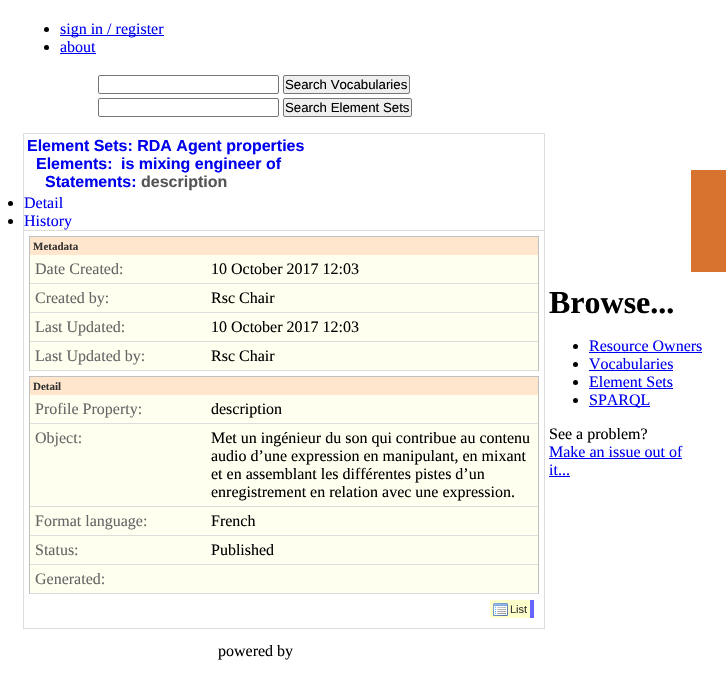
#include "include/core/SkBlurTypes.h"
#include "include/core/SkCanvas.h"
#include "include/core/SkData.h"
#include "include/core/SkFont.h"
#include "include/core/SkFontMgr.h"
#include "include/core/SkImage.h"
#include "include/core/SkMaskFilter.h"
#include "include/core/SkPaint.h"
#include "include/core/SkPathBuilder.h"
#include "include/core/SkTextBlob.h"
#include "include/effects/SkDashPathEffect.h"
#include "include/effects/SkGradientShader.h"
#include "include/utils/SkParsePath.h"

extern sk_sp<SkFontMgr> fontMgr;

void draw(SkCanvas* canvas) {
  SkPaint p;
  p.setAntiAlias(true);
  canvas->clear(SK_ColorWHITE);
  p.setColor(SK_ColorBLACK);
  canvas->drawCircle(46.5f, 29.5f, 2.5f, p);
  p.setColor(SkColorSetRGB(0, 0, 238));
  canvas->drawRect(SkRect::MakeLTRB(60, 35, 164, 36), p);
  p.setColor(SK_ColorBLACK);
  canvas->drawCircle(46.5f, 47.5f, 2.5f, p);
  p.setColor(SkColorSetRGB(0, 0, 238));
  canvas->drawRect(SkRect::MakeLTRB(60, 53, 96, 54), p);
  p.setStyle(SkPaint::kStroke_Style);
  p.setStrokeWidth(1);
  p.setColor(SkColorSetRGB(118, 118, 118));
  canvas->drawRoundRect(SkRect::MakeLTRB(98.5f, 75.5f, 278.5f, 93.5f), 1.5f, 1.5f, p);
  p.setStyle(SkPaint::kFill_Style);
  p.setColor(SkColorSetRGB(239, 239, 239));
  canvas->drawRoundRect(SkRect::MakeLTRB(283.5f, 75.5f, 409.5f, 93.5f), 1.5f, 1.5f, p);
  p.setStyle(SkPaint::kStroke_Style);
  p.setColor(SkColorSetRGB(118, 118, 118));
  canvas->drawRoundRect(SkRect::MakeLTRB(283.5f, 75.5f, 409.5f, 93.5f), 1.5f, 1.5f, p);
  canvas->drawRoundRect(SkRect::MakeLTRB(98.5f, 98.5f, 278.5f, 116.5f), 1.5f, 1.5f, p);
  p.setStyle(SkPaint::kFill_Style);
  p.setColor(SkColorSetRGB(239, 239, 239));
  canvas->drawRoundRect(SkRect::MakeLTRB(283.5f, 98.5f, 411.5f, 116.5f), 1.5f, 1.5f, p);
  p.setStyle(SkPaint::kStroke_Style);
  p.setColor(SkColorSetRGB(118, 118, 118));
  canvas->drawRoundRect(SkRect::MakeLTRB(283.5f, 98.5f, 411.5f, 116.5f), 1.5f, 1.5f, p);
  p.setColor(SkColorSetRGB(221, 221, 221));
  canvas->drawRect(SkRect::MakeLTRB(23.5f, 133.5f, 544.5f, 628.5f), p);
  p.setStyle(SkPaint::kFill_Style);
  p.setColor(SK_ColorBLACK);
  canvas->drawCircle(10.5f, 203.5f, 2.5f, p);
  canvas->drawCircle(10.5f, 221.5f, 2.5f, p);
  p.setColor(SkColorSetRGB(221, 221, 221));
  canvas->drawRect(SkRect::MakeLTRB(24, 230, 544, 231), p);
  p.setColor(SkColorSetRGB(192, 192, 192));
  canvas->drawRect(SkRect::MakeLTRB(29, 236, 539, 237), p);
  canvas->drawRect(SkRect::MakeLTRB(538, 236, 539, 371), p);
  canvas->drawRect(SkRect::MakeLTRB(29, 236, 30, 371), p);
  p.setColor(SkColorSetRGB(255, 230, 204));
  canvas->drawRect(SkRect::MakeLTRB(30, 237, 538, 255), p);
  p.setColor(SkColorSetRGB(255, 255, 240));
  canvas->drawRect(SkRect::MakeLTRB(30, 255, 538, 283), p);
  p.setColor(SkColorSetRGB(221, 221, 221));
  canvas->drawRect(SkRect::MakeLTRB(30, 283, 538, 284), p);
  p.setColor(SkColorSetRGB(255, 255, 240));
  canvas->drawRect(SkRect::MakeLTRB(30, 284, 538, 312), p);
  p.setColor(SkColorSetRGB(221, 221, 221));
  canvas->drawRect(SkRect::MakeLTRB(30, 312, 538, 313), p);
  p.setColor(SkColorSetRGB(255, 255, 240));
  canvas->drawRect(SkRect::MakeLTRB(30, 313, 538, 341), p);
  p.setColor(SkColorSetRGB(221, 221, 221));
  canvas->drawRect(SkRect::MakeLTRB(30, 341, 538, 342), p);
  p.setColor(SkColorSetRGB(255, 255, 240));
  canvas->drawRect(SkRect::MakeLTRB(30, 342, 538, 370), p);
  p.setColor(SkColorSetRGB(221, 221, 221));
  canvas->drawRect(SkRect::MakeLTRB(30, 370, 538, 371), p);
  p.setColor(SkColorSetRGB(192, 192, 192));
  canvas->drawRect(SkRect::MakeLTRB(29, 376, 539, 377), p);
  canvas->drawRect(SkRect::MakeLTRB(538, 376, 539, 594), p);
  canvas->drawRect(SkRect::MakeLTRB(29, 376, 30, 594), p);
  p.setColor(SkColorSetRGB(255, 230, 204));
  canvas->drawRect(SkRect::MakeLTRB(30, 377, 538, 395), p);
  p.setColor(SkColorSetRGB(255, 255, 240));
  canvas->drawRect(SkRect::MakeLTRB(30, 395, 538, 423), p);
  p.setColor(SkColorSetRGB(221, 221, 221));
  canvas->drawRect(SkRect::MakeLTRB(30, 423, 538, 424), p);
  p.setColor(SkColorSetRGB(255, 255, 240));
  canvas->drawRect(SkRect::MakeLTRB(30, 424, 538, 506), p);
  p.setColor(SkColorSetRGB(221, 221, 221));
  canvas->drawRect(SkRect::MakeLTRB(30, 506, 538, 507), p);
  p.setColor(SkColorSetRGB(255, 255, 240));
  canvas->drawRect(SkRect::MakeLTRB(30, 507, 538, 535), p);
  p.setColor(SkColorSetRGB(221, 221, 221));
  canvas->drawRect(SkRect::MakeLTRB(30, 535, 538, 536), p);
  p.setColor(SkColorSetRGB(255, 255, 240));
  canvas->drawRect(SkRect::MakeLTRB(30, 536, 538, 564), p);
  p.setColor(SkColorSetRGB(221, 221, 221));
  canvas->drawRect(SkRect::MakeLTRB(30, 564, 538, 565), p);
  p.setColor(SkColorSetRGB(255, 255, 240));
  canvas->drawRect(SkRect::MakeLTRB(30, 565, 538, 593), p);
  p.setColor(SkColorSetRGB(221, 221, 221));
  canvas->drawRect(SkRect::MakeLTRB(30, 593, 538, 594), p);
  p.setColor(SkColorSetRGB(255, 255, 204));
  canvas->drawRect(SkRect::MakeLTRB(490, 600, 530, 618), p);
  canvas->drawImageRect(SkImages::DeferredFromEncodedData(SkData::MakeFromFileName("images/1.png")), SkRect::MakeLTRB(493, 603, 508, 616), SkSamplingOptions());
  p.setColor(SkColorSetRGB(102, 102, 255));
  canvas->drawRect(SkRect::MakeLTRB(530, 600, 534, 618), p);
  p.setColor(SK_ColorBLACK);
  canvas->drawCircle(575.5f, 346.5f, 2.5f, p);
  p.setColor(SkColorSetRGB(0, 0, 238));
  canvas->drawRect(SkRect::MakeLTRB(589, 352, 702, 353), p);
  p.setColor(SK_ColorBLACK);
  canvas->drawCircle(575.5f, 364.5f, 2.5f, p);
  p.setColor(SkColorSetRGB(0, 0, 238));
  canvas->drawRect(SkRect::MakeLTRB(589, 370, 673, 371), p);
  p.setColor(SK_ColorBLACK);
  canvas->drawCircle(575.5f, 382.5f, 2.5f, p);
  p.setColor(SkColorSetRGB(0, 0, 238));
  canvas->drawRect(SkRect::MakeLTRB(589, 388, 673, 389), p);
  p.setColor(SK_ColorBLACK);
  canvas->drawCircle(575.5f, 400.5f, 2.5f, p);
  p.setColor(SkColorSetRGB(0, 0, 238));
  canvas->drawRect(SkRect::MakeLTRB(589, 406, 650, 407), p);
  canvas->drawRect(SkRect::MakeLTRB(549, 458, 682, 459), p);
  canvas->drawRect(SkRect::MakeLTRB(549, 476, 570, 477), p);
  p.setColor(SkColorSetRGB(216, 115, 47));
  canvas->drawRect(SkRect::MakeLTRB(691, 170, 726, 272), p);
  SkFont font1(fontMgr->matchFamilyStyle("Liberation Serif", SkFontStyle::Normal()), 16);
  font1.setSubpixel(true);
  p.setColor(SkColorSetRGB(0, 0, 238));
  canvas->drawString("sign in / register", 60, 34, font1, p);
  canvas->drawString("about", 60, 52, font1, p);
  SkFont font2(fontMgr->matchFamilyStyle("Liberation Sans", SkFontStyle::Normal()), 13.25f);
  font2.setSubpixel(true);
  p.setColor(SK_ColorBLACK);
  canvas->drawString("Search Vocabularies", 285, 89, font2, p);
  canvas->drawString("Search Element Sets", 285, 112, font2, p);
  SkFont font3(fontMgr->matchFamilyStyle("Liberation Sans", SkFontStyle::Bold()), 16);
  font3.setSubpixel(true);
  p.setColor(SkColorSetRGB(0, 0, 238));
  canvas->drawString("Element Sets: RDA Agent properties", 27, 151, font3, p);
  canvas->drawString("Elements:", 36, 169, font3, p);
  canvas->drawString("is mixing engineer of", 121, 169, font3, p);
  canvas->drawString("Statements:", 45, 187, font3, p);
  p.setColor(SkColorSetRGB(85, 85, 85));
  canvas->drawString("description", 141, 187, font3, p);
  p.setColor(SkColorSetRGB(0, 0, 238));
  canvas->drawString("Detail", 24, 208, font1, p);
  canvas->drawString("History", 24, 226, font1, p);
  SkFont font4(fontMgr->matchFamilyStyle("Liberation Serif", SkFontStyle::Bold()), 11);
  font4.setSubpixel(true);
  p.setColor(SkColorSetRGB(51, 51, 51));
  canvas->drawString("Metadata", 33, 250, font4, p);
  p.setColor(SkColorSetRGB(102, 102, 102));
  canvas->drawString("Date Created:", 35, 274, font1, p);
  p.setColor(SK_ColorBLACK);
  canvas->drawString("10 October 2017 12:03", 211, 274, font1, p);
  p.setColor(SkColorSetRGB(102, 102, 102));
  canvas->drawString("Created by:", 35, 303, font1, p);
  p.setColor(SK_ColorBLACK);
  canvas->drawString("Rsc Chair", 211, 303, font1, p);
  p.setColor(SkColorSetRGB(102, 102, 102));
  canvas->drawString("Last Updated:", 35, 332, font1, p);
  p.setColor(SK_ColorBLACK);
  canvas->drawString("10 October 2017 12:03", 211, 332, font1, p);
  p.setColor(SkColorSetRGB(102, 102, 102));
  canvas->drawString("Last Updated by:", 35, 361, font1, p);
  p.setColor(SK_ColorBLACK);
  canvas->drawString("Rsc Chair", 211, 361, font1, p);
  p.setColor(SkColorSetRGB(51, 51, 51));
  canvas->drawString("Detail", 33, 390, font4, p);
  p.setColor(SkColorSetRGB(102, 102, 102));
  canvas->drawString("Profile Property:", 35, 414, font1, p);
  p.setColor(SK_ColorBLACK);
  canvas->drawString("description", 211, 414, font1, p);
  p.setColor(SkColorSetRGB(102, 102, 102));
  canvas->drawString("Object:", 35, 443, font1, p);
  p.setColor(SK_ColorBLACK);
  canvas->drawString("Met un ingénieur du son qui contribue au contenu", 211, 443, font1, p);
  canvas->drawString("audio d’une expression en manipulant, en mixant", 211, 461, font1, p);
  canvas->drawString("et en assemblant les différentes pistes d’un", 211, 479, font1, p);
  canvas->drawString("enregistrement en relation avec une expression.", 211, 497, font1, p);
  p.setColor(SkColorSetRGB(102, 102, 102));
  canvas->drawString("Format language:", 35, 526, font1, p);
  p.setColor(SK_ColorBLACK);
  canvas->drawString("French", 211, 526, font1, p);
  p.setColor(SkColorSetRGB(102, 102, 102));
  canvas->drawString("Status:", 35, 555, font1, p);
  p.setColor(SK_ColorBLACK);
  canvas->drawString("Published", 211, 555, font1, p);
  p.setColor(SkColorSetRGB(102, 102, 102));
  canvas->drawString("Generated:", 35, 584, font1, p);
  SkFont font5(fontMgr->matchFamilyStyle("Liberation Sans", SkFontStyle::Normal()), 11);
  font5.setSubpixel(true);
  p.setColor(SkColorSetRGB(51, 51, 51));
  canvas->drawString("List", 510, 613, font5, p);
  SkFont font6(fontMgr->matchFamilyStyle("Liberation Serif", SkFontStyle::Bold()), 32);
  font6.setSubpixel(true);
  p.setColor(SK_ColorBLACK);
  canvas->drawString("Browse...", 549, 313, font6, p);
  p.setColor(SkColorSetRGB(0, 0, 238));
  canvas->drawString("Resource Owners", 589, 351, font1, p);
  canvas->drawString("Vocabularies", 589, 369, font1, p);
  canvas->drawString("Element Sets", 589, 387, font1, p);
  canvas->drawString("SPARQL", 589, 405, font1, p);
  p.setColor(SK_ColorBLACK);
  canvas->drawString("See a problem?", 549, 439, font1, p);
  p.setColor(SkColorSetRGB(0, 0, 238));
  canvas->drawString("Make an issue out of", 549, 457, font1, p);
  canvas->drawString("it...", 549, 475, font1, p);
  p.setColor(SK_ColorBLACK);
  canvas->drawString("powered by", 218, 656, font1, p);
}
